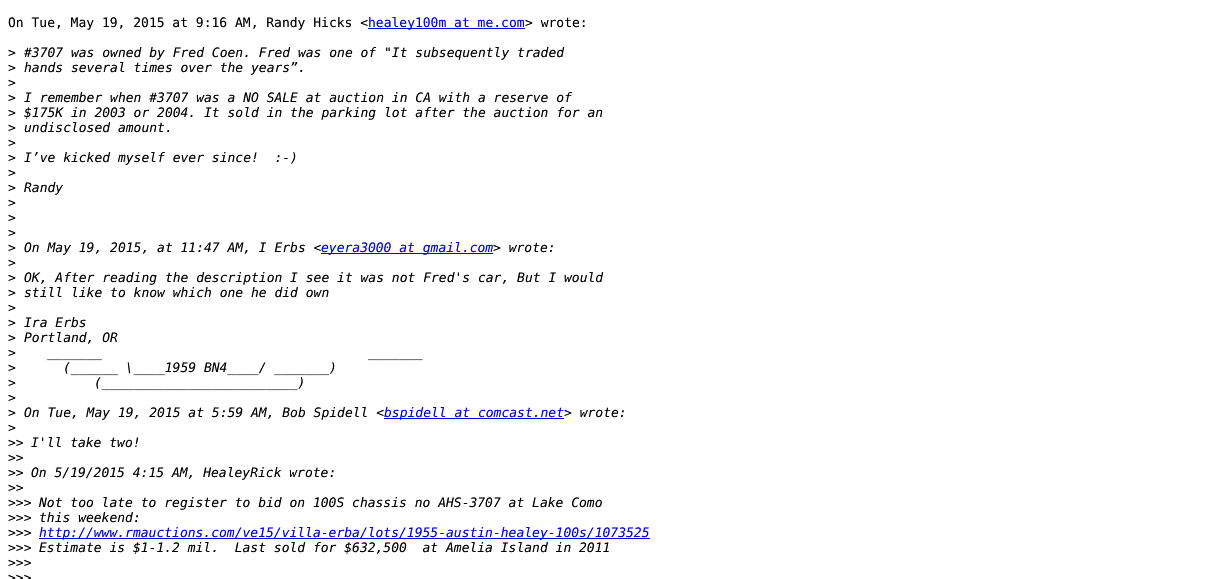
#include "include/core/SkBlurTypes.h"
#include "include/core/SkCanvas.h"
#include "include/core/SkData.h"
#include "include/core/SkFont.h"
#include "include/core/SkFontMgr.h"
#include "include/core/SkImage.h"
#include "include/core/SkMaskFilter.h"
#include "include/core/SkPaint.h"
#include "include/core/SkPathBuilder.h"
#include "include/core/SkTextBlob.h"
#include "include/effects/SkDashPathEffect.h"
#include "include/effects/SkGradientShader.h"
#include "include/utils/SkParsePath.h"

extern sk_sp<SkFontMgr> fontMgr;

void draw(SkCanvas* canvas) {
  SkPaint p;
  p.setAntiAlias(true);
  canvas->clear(SK_ColorWHITE);
  p.setColor(SkColorSetRGB(0, 0, 238));
  canvas->drawRect(SkRect::MakeLTRB(368, 28, 525, 29), p);
  canvas->drawRect(SkRect::MakeLTRB(321, 253, 493, 254), p);
  canvas->drawRect(SkRect::MakeLTRB(384, 418, 564, 419), p);
  canvas->drawRect(SkRect::MakeLTRB(39, 538, 650, 539), p);
  SkFont font1(fontMgr->matchFamilyStyle("DejaVu Sans Mono", SkFontStyle::Normal()), 13);
  font1.setSubpixel(true);
  p.setColor(SK_ColorBLACK);
  canvas->drawString("On Tue, May 19, 2015 at 9:16 AM, Randy Hicks <", 8, 27, font1, p);
  p.setColor(SkColorSetRGB(0, 0, 238));
  canvas->drawString("healey100m at me.com", 368, 27, font1, p);
  p.setColor(SK_ColorBLACK);
  canvas->drawString("> wrote:", 525, 27, font1, p);
  canvas->drawString(">", 8, 57, font1, p);
  SkFont font2(fontMgr->matchFamilyStyle("DejaVu Sans Mono", SkFontStyle::Italic()), 13);
  font2.setSubpixel(true);
  canvas->drawString("#3707 was owned by Fred Coen. Fred was one of \"It subsequently traded", 24, 57, font2, p);
  canvas->drawString(">", 8, 72, font1, p);
  canvas->drawString("hands several times over the years”.", 24, 72, font2, p);
  canvas->drawString(">", 8, 87, font1, p);
  canvas->drawString(">", 8, 102, font1, p);
  canvas->drawString("I remember when #3707 was a NO SALE at auction in CA with a reserve of", 24, 102, font2, p);
  canvas->drawString(">", 8, 117, font1, p);
  canvas->drawString("$175K in 2003 or 2004. It sold in the parking lot after the auction for an", 24, 117, font2, p);
  canvas->drawString(">", 8, 132, font1, p);
  canvas->drawString("undisclosed amount.", 24, 132, font2, p);
  canvas->drawString(">", 8, 147, font1, p);
  canvas->drawString(">", 8, 162, font1, p);
  canvas->drawString("I’ve kicked myself ever since!  :-)", 24, 162, font2, p);
  canvas->drawString(">", 8, 177, font1, p);
  canvas->drawString(">", 8, 192, font1, p);
  canvas->drawString("Randy", 24, 192, font2, p);
  canvas->drawString(">", 8, 207, font1, p);
  canvas->drawString(">", 8, 222, font1, p);
  canvas->drawString(">", 8, 237, font1, p);
  canvas->drawString(">", 8, 252, font1, p);
  canvas->drawString("On May 19, 2015, at 11:47 AM, I Erbs <", 24, 252, font2, p);
  p.setColor(SkColorSetRGB(0, 0, 238));
  canvas->drawString("eyera3000 at gmail.com", 321, 252, font2, p);
  p.setColor(SK_ColorBLACK);
  canvas->drawString("> wrote:", 493, 252, font2, p);
  canvas->drawString(">", 8, 267, font1, p);
  canvas->drawString(">", 8, 282, font1, p);
  canvas->drawString("OK, After reading the description I see it was not Fred's car, But I would", 24, 282, font2, p);
  canvas->drawString(">", 8, 297, font1, p);
  canvas->drawString("still like to know which one he did own", 24, 297, font2, p);
  canvas->drawString(">", 8, 312, font1, p);
  canvas->drawString(">", 8, 327, font1, p);
  canvas->drawString("Ira Erbs", 24, 327, font2, p);
  canvas->drawString(">", 8, 342, font1, p);
  canvas->drawString("Portland, OR", 24, 342, font2, p);
  canvas->drawString(">", 8, 357, font1, p);
  canvas->drawString("_______                                  _______", 47, 357, font2, p);
  canvas->drawString(">", 8, 372, font1, p);
  canvas->drawString("(______ \\____1959 BN4____/ _______)", 63, 372, font2, p);
  canvas->drawString(">", 8, 387, font1, p);
  canvas->drawString("(_________________________)", 94, 387, font2, p);
  canvas->drawString(">", 8, 402, font1, p);
  canvas->drawString(">", 8, 417, font1, p);
  canvas->drawString("On Tue, May 19, 2015 at 5:59 AM, Bob Spidell <", 24, 417, font2, p);
  p.setColor(SkColorSetRGB(0, 0, 238));
  canvas->drawString("bspidell at comcast.net", 384, 417, font2, p);
  p.setColor(SK_ColorBLACK);
  canvas->drawString("> wrote:", 564, 417, font2, p);
  canvas->drawString(">", 8, 432, font1, p);
  canvas->drawString(">>", 8, 447, font1, p);
  canvas->drawString("I'll take two!", 31, 447, font2, p);
  canvas->drawString(">>", 8, 462, font1, p);
  canvas->drawString(">>", 8, 477, font1, p);
  canvas->drawString("On 5/19/2015 4:15 AM, HealeyRick wrote:", 31, 477, font2, p);
  canvas->drawString(">>", 8, 492, font1, p);
  canvas->drawString(">>>", 8, 507, font1, p);
  canvas->drawString("Not too late to register to bid on 100S chassis no AHS-3707 at Lake Como", 39, 507, font2, p);
  canvas->drawString(">>>", 8, 522, font1, p);
  canvas->drawString("this weekend:", 39, 522, font2, p);
  canvas->drawString(">>>", 8, 537, font1, p);
  p.setColor(SkColorSetRGB(0, 0, 238));
  canvas->drawString("http://www.rmauctions.com/ve15/villa-erba/lots/1955-austin-healey-100s/1073525", 39, 537, font2, p);
  p.setColor(SK_ColorBLACK);
  canvas->drawString(">>>", 8, 552, font1, p);
  canvas->drawString("Estimate is $1-1.2 mil.  Last sold for $632,500  at Amelia Island in 2011", 39, 552, font2, p);
  canvas->drawString(">>>", 8, 567, font1, p);
  canvas->drawString(">>>", 8, 582, font1, p);
}
